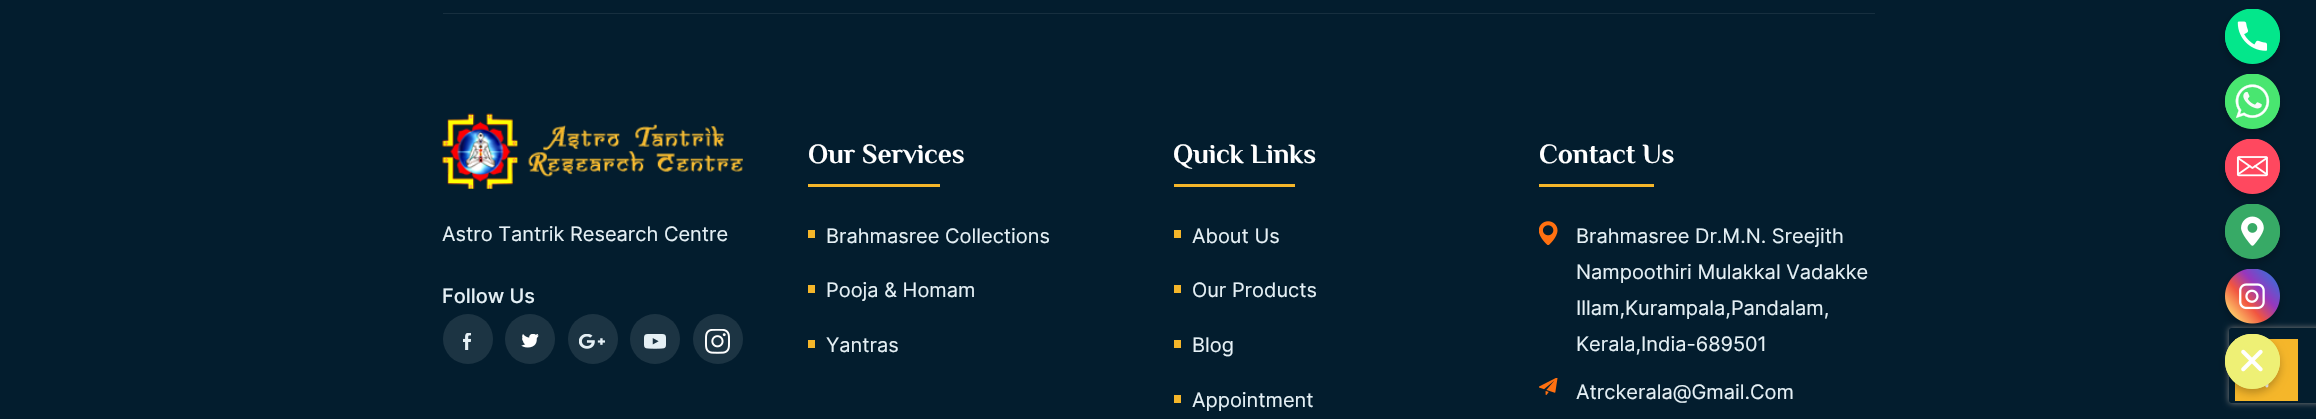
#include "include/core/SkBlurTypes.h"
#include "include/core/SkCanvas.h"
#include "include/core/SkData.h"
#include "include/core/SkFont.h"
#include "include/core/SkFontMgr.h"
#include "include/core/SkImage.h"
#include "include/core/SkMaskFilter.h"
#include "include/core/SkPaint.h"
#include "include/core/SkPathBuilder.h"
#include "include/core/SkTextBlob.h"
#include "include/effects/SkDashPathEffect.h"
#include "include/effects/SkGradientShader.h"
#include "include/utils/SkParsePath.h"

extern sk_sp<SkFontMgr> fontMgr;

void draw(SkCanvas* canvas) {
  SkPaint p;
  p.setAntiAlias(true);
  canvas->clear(SkColorSetRGB(3, 29, 46));
  p.setColor(SkColorSetRGB(23, 47, 63));
  canvas->drawRect(SkRect::MakeLTRB(443, 13, 1875, 14), p);
  canvas->drawImageRect(SkImages::DeferredFromEncodedData(SkData::MakeFromFileName("images/1.png")), SkRect::MakeLTRB(442, 113, 743, 189), SkSamplingOptions());
  p.setColor(SkColorSetRGB(28, 52, 67));
  canvas->drawCircle(468, 339, 25, p);
  canvas->drawImageRect(SkImages::DeferredFromEncodedData(SkData::MakeFromFileName("images/2.png")), SkRect::MakeLTRB(463, 333, 471, 350), SkSamplingOptions());
  canvas->drawCircle(530, 339, 25, p);
  canvas->drawImageRect(SkImages::DeferredFromEncodedData(SkData::MakeFromFileName("images/3.png")), SkRect::MakeLTRB(521, 334, 539, 348), SkSamplingOptions());
  canvas->drawCircle(593, 339, 25, p);
  canvas->drawImageRect(SkImages::DeferredFromEncodedData(SkData::MakeFromFileName("images/4.png")), SkRect::MakeLTRB(579, 334, 605, 349), SkSamplingOptions());
  canvas->drawCircle(655, 339, 25, p);
  canvas->drawImageRect(SkImages::DeferredFromEncodedData(SkData::MakeFromFileName("images/5.png")), SkRect::MakeLTRB(644, 334, 666, 349), SkSamplingOptions());
  canvas->drawCircle(718, 339, 25, p);
  canvas->drawImageRect(SkImages::DeferredFromEncodedData(SkData::MakeFromFileName("images/6.png")), SkRect::MakeLTRB(705, 329, 730, 354), SkSamplingOptions());
  p.setColor(SkColorSetRGB(245, 182, 42));
  canvas->drawRect(SkRect::MakeLTRB(808, 184, 940, 187), p);
  canvas->drawRect(SkRect::MakeLTRB(808, 230, 815, 238), p);
  canvas->drawRect(SkRect::MakeLTRB(808, 285, 815, 293), p);
  canvas->drawRect(SkRect::MakeLTRB(808, 340, 815, 348), p);
  canvas->drawRect(SkRect::MakeLTRB(1174, 184, 1295, 187), p);
  canvas->drawRect(SkRect::MakeLTRB(1174, 230, 1181, 238), p);
  canvas->drawRect(SkRect::MakeLTRB(1174, 285, 1181, 293), p);
  canvas->drawRect(SkRect::MakeLTRB(1174, 340, 1181, 348), p);
  canvas->drawRect(SkRect::MakeLTRB(1174, 395, 1181, 403), p);
  canvas->drawRect(SkRect::MakeLTRB(1539, 184, 1654, 187), p);
  canvas->drawImageRect(SkImages::DeferredFromEncodedData(SkData::MakeFromFileName("images/7.png")), SkRect::MakeLTRB(1539, 221, 1558, 245), SkSamplingOptions());
  canvas->drawImageRect(SkImages::DeferredFromEncodedData(SkData::MakeFromFileName("images/8.png")), SkRect::MakeLTRB(1539, 378, 1558, 395), SkSamplingOptions());
  canvas->save();
  canvas->clipPath(SkPathBuilder(SkPathFillType::kEvenOdd).moveTo(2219, 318).lineTo(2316, 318).lineTo(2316, 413).lineTo(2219, 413).close().moveTo(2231.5f, 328).lineTo(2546.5f, 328).cubicTo(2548, 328, 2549, 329, 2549, 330.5f).lineTo(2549, 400.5f).cubicTo(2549, 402, 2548, 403, 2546.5f, 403).lineTo(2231.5f, 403).cubicTo(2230, 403, 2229, 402, 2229, 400.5f).lineTo(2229, 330.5f).cubicTo(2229, 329, 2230, 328, 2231.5f, 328).close().detach(), true);
  p.setColor(SkColorSetRGB(128, 128, 128));
  p.setMaskFilter(SkMaskFilter::MakeBlur(kNormal_SkBlurStyle, 3));
  canvas->drawRoundRect(SkRect::MakeLTRB(2229, 328, 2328, 403), 2.5f, 2.5f, p);
  p.setMaskFilter(nullptr);
  canvas->restore();
  p.setColor(SkColorSetRGB(245, 182, 42));
  canvas->drawRect(SkRect::MakeLTRB(2235, 339, 2298, 401), p);
  canvas->drawImageRect(SkImages::DeferredFromEncodedData(SkData::MakeFromFileName("images/9.png")), SkRect::MakeLTRB(2265, 383, 2269, 388), SkSamplingOptions());
  p.setColor(SkColorSetARGB(64, 0, 0, 0));
  p.setMaskFilter(SkMaskFilter::MakeBlur(kNormal_SkBlurStyle, 4));
  canvas->drawRoundRect(SkRect::MakeLTRB(2225, 13, 2280, 68), 27.5f, 27.5f, p);
  p.setMaskFilter(nullptr);
  p.setColor(SkColorSetRGB(3, 231, 139));
  canvas->drawCircle(2252.5f, 36.5f, 27.5f, p);
  canvas->drawImageRect(SkImages::DeferredFromEncodedData(SkData::MakeFromFileName("images/10.png")), SkRect::MakeLTRB(2225, 9, 2280, 64), SkSamplingOptions());
  p.setColor(SkColorSetARGB(64, 0, 0, 0));
  p.setMaskFilter(SkMaskFilter::MakeBlur(kNormal_SkBlurStyle, 4));
  canvas->drawRoundRect(SkRect::MakeLTRB(2225, 78, 2280, 133), 27.5f, 27.5f, p);
  p.setMaskFilter(nullptr);
  p.setColor(SkColorSetRGB(73, 230, 112));
  canvas->drawCircle(2252.5f, 101.5f, 27.5f, p);
  canvas->drawImageRect(SkImages::DeferredFromEncodedData(SkData::MakeFromFileName("images/11.png")), SkRect::MakeLTRB(2225, 74, 2280, 129), SkSamplingOptions());
  p.setColor(SkColorSetARGB(64, 0, 0, 0));
  p.setMaskFilter(SkMaskFilter::MakeBlur(kNormal_SkBlurStyle, 4));
  canvas->drawRoundRect(SkRect::MakeLTRB(2225, 143, 2280, 198), 27.5f, 27.5f, p);
  p.setMaskFilter(nullptr);
  p.setColor(SkColorSetRGB(255, 72, 95));
  canvas->drawCircle(2252.5f, 166.5f, 27.5f, p);
  canvas->drawImageRect(SkImages::DeferredFromEncodedData(SkData::MakeFromFileName("images/12.png")), SkRect::MakeLTRB(2225, 139, 2280, 194), SkSamplingOptions());
  p.setColor(SkColorSetARGB(64, 0, 0, 0));
  p.setMaskFilter(SkMaskFilter::MakeBlur(kNormal_SkBlurStyle, 4));
  canvas->drawRoundRect(SkRect::MakeLTRB(2225, 208, 2280, 263), 27.5f, 27.5f, p);
  p.setMaskFilter(nullptr);
  p.setColor(SkColorSetRGB(55, 170, 102));
  canvas->drawCircle(2252.5f, 231.5f, 27.5f, p);
  canvas->drawImageRect(SkImages::DeferredFromEncodedData(SkData::MakeFromFileName("images/13.png")), SkRect::MakeLTRB(2225, 204, 2280, 259), SkSamplingOptions());
  p.setColor(SkColorSetARGB(64, 0, 0, 0));
  p.setMaskFilter(SkMaskFilter::MakeBlur(kNormal_SkBlurStyle, 4));
  canvas->drawRoundRect(SkRect::MakeLTRB(2225, 273, 2280, 328), 27.5f, 27.5f, p);
  p.setMaskFilter(nullptr);
  canvas->drawImageRect(SkImages::DeferredFromEncodedData(SkData::MakeFromFileName("images/14.png")), SkRect::MakeLTRB(2225, 269, 2280, 324), SkSamplingOptions());
  p.setMaskFilter(SkMaskFilter::MakeBlur(kNormal_SkBlurStyle, 4));
  canvas->drawRoundRect(SkRect::MakeLTRB(2225, 338, 2280, 393), 27.5f, 27.5f, p);
  p.setMaskFilter(nullptr);
  p.setColor(SkColorSetRGB(238, 240, 117));
  canvas->drawPath(SkPathBuilder().moveTo(2252, 389).cubicTo(2237, 389, 2225, 376, 2225, 361).cubicTo(2225, 346, 2237, 334, 2252, 334).cubicTo(2268, 334, 2280, 346, 2280, 361).cubicTo(2280, 376, 2268, 389, 2252, 389).close().detach(), p);
  canvas->drawImageRect(SkImages::DeferredFromEncodedData(SkData::MakeFromFileName("images/15.png")), SkRect::MakeLTRB(2225, 334, 2280, 389), SkSamplingOptions());
  SkFont font1(fontMgr->matchFamilyStyle("Inter", SkFontStyle::Normal()), 20);
  font1.setSubpixel(true);
  p.setColor(SkColorSetRGB(229, 240, 245));
  canvas->drawString("Astro Tantrik Research Centre", 442, 241, font1, p);
  SkFont font2(fontMgr->matchFamilyStyle("Inter", SkFontStyle(500, SkFontStyle::kNormal_Width, SkFontStyle::kUpright_Slant)), 20);
  font2.setSubpixel(true);
  canvas->drawString("Follow Us", 442, 303, font2, p);
  SkFont font3(fontMgr->matchFamilyStyle("Philosopher", SkFontStyle::Bold()), 27.5f);
  font3.setSubpixel(true);
  p.setColor(SK_ColorWHITE);
  canvas->drawString("Our Services", 808, 163, font3, p);
  p.setColor(SkColorSetRGB(229, 240, 245));
  canvas->drawString("Brahmasree Collections", 826, 243, font1, p);
  canvas->drawString("Pooja & Homam", 826, 297, font1, p);
  canvas->drawString("Yantras", 826, 352, font1, p);
  p.setColor(SK_ColorWHITE);
  canvas->drawString("Quick Links", 1173, 163, font3, p);
  p.setColor(SkColorSetRGB(229, 240, 245));
  canvas->drawString("About Us", 1192, 243, font1, p);
  canvas->drawString("Our Products", 1192, 297, font1, p);
  canvas->drawString("Blog", 1192, 352, font1, p);
  canvas->drawString("Appointment", 1192, 407, font1, p);
  p.setColor(SK_ColorWHITE);
  canvas->drawString("Contact Us", 1539, 163, font3, p);
  p.setColor(SkColorSetRGB(229, 240, 245));
  canvas->drawString("Brahmasree Dr.M.N. Sreejith", 1576, 243, font1, p);
  canvas->drawString("Nampoothiri Mulakkal Vadakke", 1576, 279, font1, p);
  canvas->drawString("Illam,Kurampala,Pandalam,", 1576, 315, font1, p);
  canvas->drawString("Kerala,India-689501", 1576, 351, font1, p);
  canvas->drawString("Atrckerala@Gmail.Com", 1576, 399, font1, p);
}
